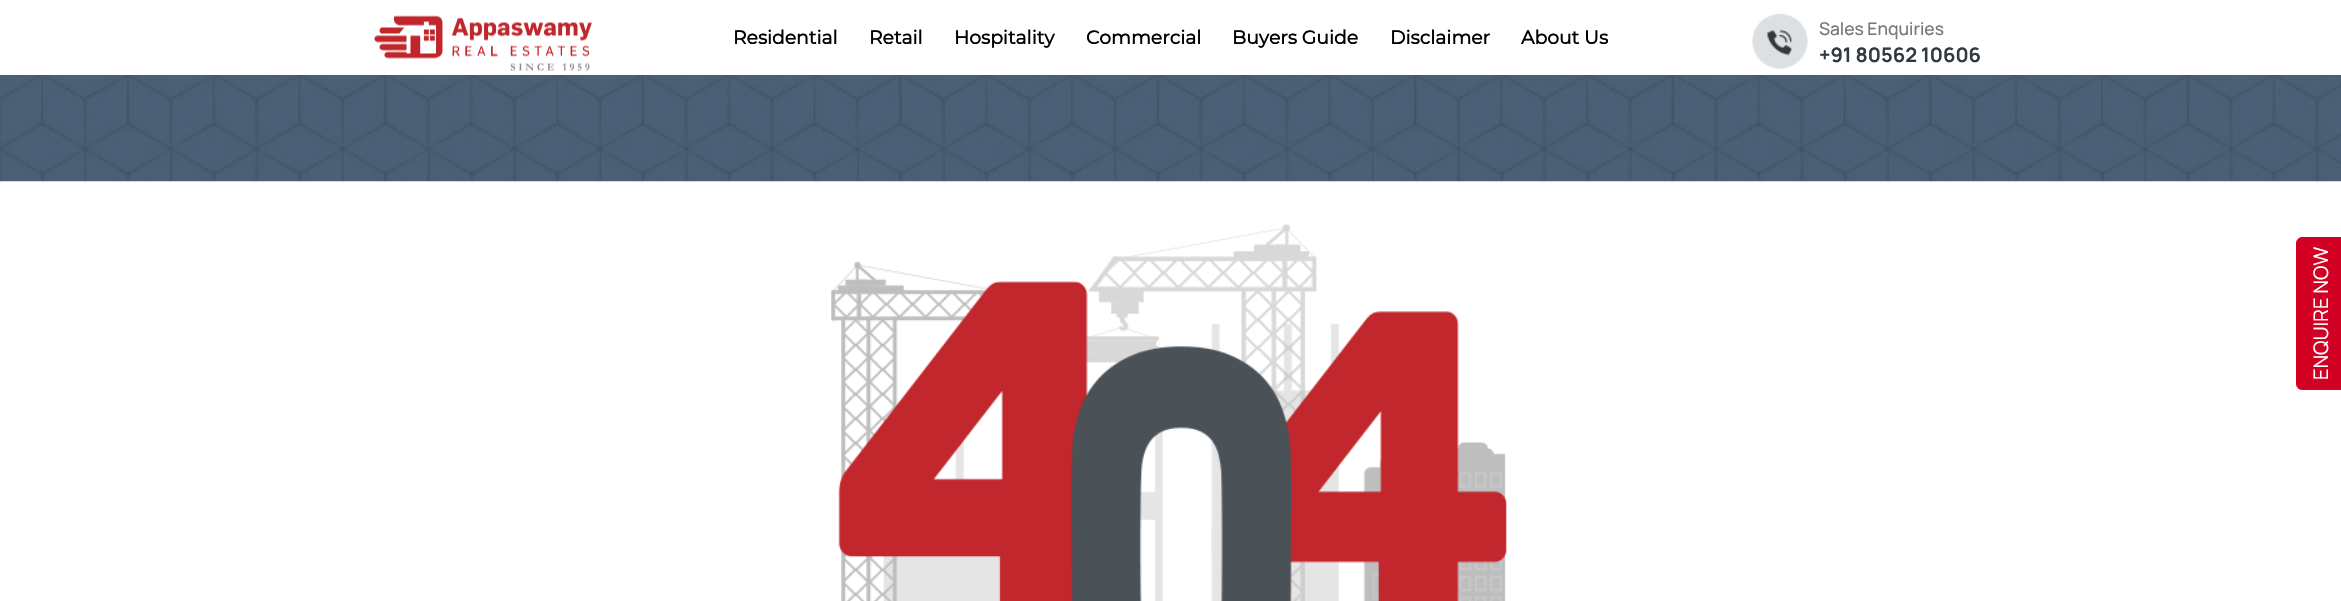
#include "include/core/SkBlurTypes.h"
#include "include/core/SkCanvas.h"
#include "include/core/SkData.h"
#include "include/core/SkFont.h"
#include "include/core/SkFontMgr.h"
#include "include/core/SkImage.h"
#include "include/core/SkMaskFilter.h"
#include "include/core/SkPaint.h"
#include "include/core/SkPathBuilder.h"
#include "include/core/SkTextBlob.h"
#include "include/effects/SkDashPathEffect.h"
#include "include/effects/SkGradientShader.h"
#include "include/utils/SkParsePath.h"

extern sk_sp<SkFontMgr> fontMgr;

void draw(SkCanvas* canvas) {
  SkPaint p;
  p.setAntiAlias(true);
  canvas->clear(SK_ColorWHITE);
  canvas->drawImageRect(SkImages::DeferredFromEncodedData(SkData::MakeFromFileName("images/1.png")), SkRect::MakeLTRB(374, 15, 592, 71), SkSamplingOptions());
  canvas->drawImageRect(SkImages::DeferredFromEncodedData(SkData::MakeFromFileName("images/2.png")), SkRect::MakeLTRB(1752, 13, 1808, 69), SkSamplingOptions());
  canvas->drawImageRect(SkImages::DeferredFromEncodedData(SkData::MakeFromFileName("images/3.png")), SkRect::MakeLTRB(0, 75, 2341, 182), SkSamplingOptions());
  canvas->drawImageRect(SkImages::DeferredFromEncodedData(SkData::MakeFromFileName("images/4.png")), SkRect::MakeLTRB(831, 223, 1507, 601), SkSamplingOptions());
  p.setColor(SkColorSetRGB(210, 0, 35));
  canvas->drawPath(SkPathBuilder().moveTo(2296, 384).lineTo(2296, 243).cubicTo(2296, 240, 2299, 237, 2302, 237).lineTo(2340, 237).cubicTo(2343, 237, 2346, 240, 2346, 243).lineTo(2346, 384).cubicTo(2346, 387, 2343, 390, 2340, 390).lineTo(2302, 390).cubicTo(2299, 390, 2296, 387, 2296, 384).close().detach(), p);
  SkFont font1(fontMgr->matchFamilyStyle("Montserrat", SkFontStyle::Bold()), 18.75f);
  font1.setSubpixel(true);
  p.setColor(SK_ColorBLACK);
  canvas->drawString("Residential", 733, 44, font1, p);
  canvas->drawString("Retail", 869, 44, font1, p);
  canvas->drawString("Hospitality", 954, 44, font1, p);
  canvas->drawString("Commercial", 1086, 44, font1, p);
  canvas->drawString("Buyers Guide", 1232, 44, font1, p);
  canvas->drawString("Disclaimer", 1390, 44, font1, p);
  canvas->drawString("About Us", 1521, 44, font1, p);
  SkFont font2(fontMgr->matchFamilyStyle("Manrope", SkFontStyle(500, SkFontStyle::kNormal_Width, SkFontStyle::kUpright_Slant)), 17.5f);
  font2.setSubpixel(true);
  p.setColor(SkColorSetRGB(119, 120, 121));
  canvas->drawString("Sales Enquiries", 1819, 35, font2, p);
  SkFont font3(fontMgr->matchFamilyStyle("Manrope", SkFontStyle::Bold()), 20);
  font3.setSubpixel(true);
  p.setColor(SkColorSetRGB(51, 57, 64));
  canvas->drawString("+91 80562 10606", 1819, 62, font3, p);
  SkFont font4(fontMgr->matchFamilyStyle("Manrope", SkFontStyle::Normal()), 20);
  font4.setSubpixel(true);
  p.setColor(SK_ColorWHITE);
  canvas->save();
  canvas->rotate(-90, 2328, 380);
  canvas->drawString("ENQUIRE NOW", 2328, 380, font4, p);
  canvas->restore();
}
